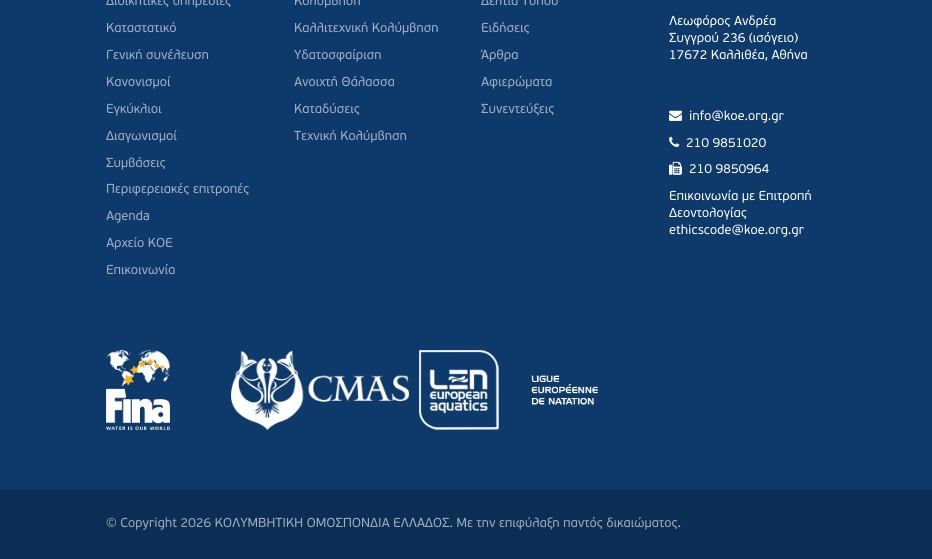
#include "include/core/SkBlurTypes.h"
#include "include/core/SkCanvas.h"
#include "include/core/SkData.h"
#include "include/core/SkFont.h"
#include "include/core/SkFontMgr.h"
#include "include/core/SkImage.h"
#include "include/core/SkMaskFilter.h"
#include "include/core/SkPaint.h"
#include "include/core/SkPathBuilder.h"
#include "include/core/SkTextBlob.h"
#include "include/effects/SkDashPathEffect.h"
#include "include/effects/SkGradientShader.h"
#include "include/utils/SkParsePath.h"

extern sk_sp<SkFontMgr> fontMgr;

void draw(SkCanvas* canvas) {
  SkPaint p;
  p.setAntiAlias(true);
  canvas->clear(SkColorSetRGB(14, 57, 107));
  canvas->drawImageRect(SkImages::DeferredFromEncodedData(SkData::MakeFromFileName("images/1.png")), SkRect::MakeLTRB(106, 0, 231, 8), SkSamplingOptions());
  canvas->drawImageRect(SkImages::DeferredFromEncodedData(SkData::MakeFromFileName("images/2.png")), SkRect::MakeLTRB(107, 22, 176, 33), SkSamplingOptions());
  canvas->drawImageRect(SkImages::DeferredFromEncodedData(SkData::MakeFromFileName("images/3.png")), SkRect::MakeLTRB(107, 49, 209, 60), SkSamplingOptions());
  canvas->drawImageRect(SkImages::DeferredFromEncodedData(SkData::MakeFromFileName("images/4.png")), SkRect::MakeLTRB(107, 76, 171, 89), SkSamplingOptions());
  canvas->drawImageRect(SkImages::DeferredFromEncodedData(SkData::MakeFromFileName("images/5.png")), SkRect::MakeLTRB(107, 103, 162, 116), SkSamplingOptions());
  canvas->drawImageRect(SkImages::DeferredFromEncodedData(SkData::MakeFromFileName("images/6.png")), SkRect::MakeLTRB(106, 130, 177, 143), SkSamplingOptions());
  canvas->drawImageRect(SkImages::DeferredFromEncodedData(SkData::MakeFromFileName("images/7.png")), SkRect::MakeLTRB(106, 157, 166, 170), SkSamplingOptions());
  canvas->drawImageRect(SkImages::DeferredFromEncodedData(SkData::MakeFromFileName("images/8.png")), SkRect::MakeLTRB(107, 183, 249, 196), SkSamplingOptions());
  canvas->drawImageRect(SkImages::DeferredFromEncodedData(SkData::MakeFromFileName("images/9.png")), SkRect::MakeLTRB(106, 210, 149, 223), SkSamplingOptions());
  canvas->drawImageRect(SkImages::DeferredFromEncodedData(SkData::MakeFromFileName("images/10.png")), SkRect::MakeLTRB(106, 237, 173, 250), SkSamplingOptions());
  canvas->drawImageRect(SkImages::DeferredFromEncodedData(SkData::MakeFromFileName("images/11.png")), SkRect::MakeLTRB(107, 264, 175, 275), SkSamplingOptions());
  canvas->drawImageRect(SkImages::DeferredFromEncodedData(SkData::MakeFromFileName("images/12.png")), SkRect::MakeLTRB(295, 0, 360, 8), SkSamplingOptions());
  canvas->drawImageRect(SkImages::DeferredFromEncodedData(SkData::MakeFromFileName("images/13.png")), SkRect::MakeLTRB(295, 22, 438, 35), SkSamplingOptions());
  canvas->drawImageRect(SkImages::DeferredFromEncodedData(SkData::MakeFromFileName("images/14.png")), SkRect::MakeLTRB(294, 49, 381, 62), SkSamplingOptions());
  canvas->drawImageRect(SkImages::DeferredFromEncodedData(SkData::MakeFromFileName("images/15.png")), SkRect::MakeLTRB(294, 76, 394, 87), SkSamplingOptions());
  canvas->drawImageRect(SkImages::DeferredFromEncodedData(SkData::MakeFromFileName("images/16.png")), SkRect::MakeLTRB(295, 103, 360, 115), SkSamplingOptions());
  canvas->drawImageRect(SkImages::DeferredFromEncodedData(SkData::MakeFromFileName("images/17.png")), SkRect::MakeLTRB(294, 130, 407, 143), SkSamplingOptions());
  canvas->drawImageRect(SkImages::DeferredFromEncodedData(SkData::MakeFromFileName("images/18.png")), SkRect::MakeLTRB(481, 0, 558, 6), SkSamplingOptions());
  canvas->drawImageRect(SkImages::DeferredFromEncodedData(SkData::MakeFromFileName("images/19.png")), SkRect::MakeLTRB(482, 22, 530, 34), SkSamplingOptions());
  canvas->drawImageRect(SkImages::DeferredFromEncodedData(SkData::MakeFromFileName("images/20.png")), SkRect::MakeLTRB(480, 49, 518, 62), SkSamplingOptions());
  canvas->drawImageRect(SkImages::DeferredFromEncodedData(SkData::MakeFromFileName("images/21.png")), SkRect::MakeLTRB(481, 76, 552, 89), SkSamplingOptions());
  canvas->drawImageRect(SkImages::DeferredFromEncodedData(SkData::MakeFromFileName("images/22.png")), SkRect::MakeLTRB(481, 103, 554, 116), SkSamplingOptions());
  canvas->drawImageRect(SkImages::DeferredFromEncodedData(SkData::MakeFromFileName("images/23.png")), SkRect::MakeLTRB(669, 15, 776, 28), SkSamplingOptions());
  canvas->drawImageRect(SkImages::DeferredFromEncodedData(SkData::MakeFromFileName("images/24.png")), SkRect::MakeLTRB(669, 32, 798, 45), SkSamplingOptions());
  canvas->drawImageRect(SkImages::DeferredFromEncodedData(SkData::MakeFromFileName("images/25.png")), SkRect::MakeLTRB(670, 49, 807, 61), SkSamplingOptions());
  canvas->drawImageRect(SkImages::DeferredFromEncodedData(SkData::MakeFromFileName("images/26.png")), SkRect::MakeLTRB(669, 110, 682, 121), SkSamplingOptions());
  canvas->drawImageRect(SkImages::DeferredFromEncodedData(SkData::MakeFromFileName("images/27.png")), SkRect::MakeLTRB(690, 110, 784, 123), SkSamplingOptions());
  canvas->drawImageRect(SkImages::DeferredFromEncodedData(SkData::MakeFromFileName("images/28.png")), SkRect::MakeLTRB(669, 136, 680, 147), SkSamplingOptions());
  canvas->drawImageRect(SkImages::DeferredFromEncodedData(SkData::MakeFromFileName("images/29.png")), SkRect::MakeLTRB(686, 138, 766, 148), SkSamplingOptions());
  canvas->drawImageRect(SkImages::DeferredFromEncodedData(SkData::MakeFromFileName("images/30.png")), SkRect::MakeLTRB(669, 161, 682, 175), SkSamplingOptions());
  canvas->drawImageRect(SkImages::DeferredFromEncodedData(SkData::MakeFromFileName("images/31.png")), SkRect::MakeLTRB(689, 164, 769, 174), SkSamplingOptions());
  canvas->drawImageRect(SkImages::DeferredFromEncodedData(SkData::MakeFromFileName("images/32.png")), SkRect::MakeLTRB(669, 190, 811, 203), SkSamplingOptions());
  canvas->drawImageRect(SkImages::DeferredFromEncodedData(SkData::MakeFromFileName("images/33.png")), SkRect::MakeLTRB(669, 207, 747, 220), SkSamplingOptions());
  canvas->drawImageRect(SkImages::DeferredFromEncodedData(SkData::MakeFromFileName("images/34.png")), SkRect::MakeLTRB(669, 224, 804, 237), SkSamplingOptions());
  canvas->drawImageRect(SkImages::DeferredFromEncodedData(SkData::MakeFromFileName("images/35.png")), SkRect::MakeLTRB(106, 350, 170, 430), SkSamplingOptions());
  canvas->drawImageRect(SkImages::DeferredFromEncodedData(SkData::MakeFromFileName("images/36.png")), SkRect::MakeLTRB(231, 350, 409, 430), SkSamplingOptions());
  canvas->drawImageRect(SkImages::DeferredFromEncodedData(SkData::MakeFromFileName("images/37.png")), SkRect::MakeLTRB(419, 350, 598, 430), SkSamplingOptions());
  p.setColor(SkColorSetRGB(13, 46, 84));
  canvas->drawRect(SkRect::MakeLTRB(0, 490, 932, 559), p);
  canvas->drawImageRect(SkImages::DeferredFromEncodedData(SkData::MakeFromFileName("images/38.png")), SkRect::MakeLTRB(106, 517, 681, 530), SkSamplingOptions());
}
